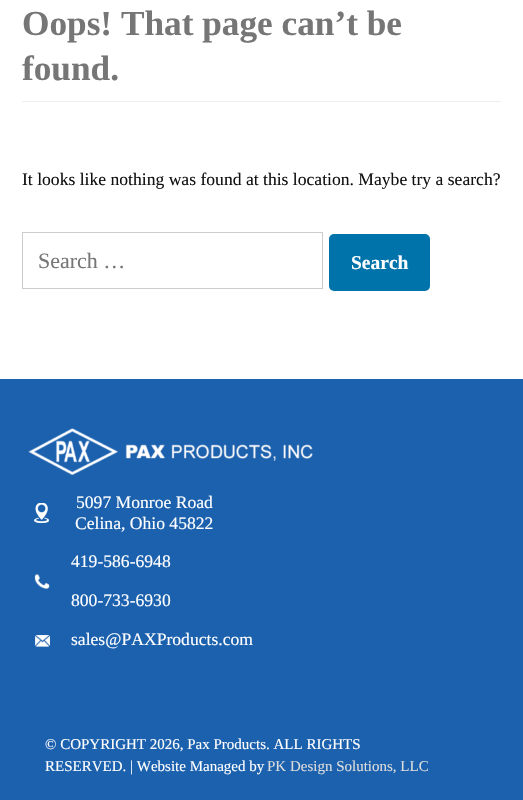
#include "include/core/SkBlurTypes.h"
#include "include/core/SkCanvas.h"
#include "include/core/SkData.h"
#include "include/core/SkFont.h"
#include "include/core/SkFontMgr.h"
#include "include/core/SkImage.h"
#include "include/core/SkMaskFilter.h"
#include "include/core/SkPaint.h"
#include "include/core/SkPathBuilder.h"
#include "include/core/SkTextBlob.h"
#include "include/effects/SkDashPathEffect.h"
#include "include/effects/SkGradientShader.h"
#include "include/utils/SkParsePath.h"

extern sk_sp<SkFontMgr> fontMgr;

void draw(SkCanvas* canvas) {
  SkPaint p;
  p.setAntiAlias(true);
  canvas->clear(SK_ColorWHITE);
  p.setColor(SkColorSetRGB(238, 238, 238));
  canvas->drawRect(SkRect::MakeLTRB(22, 101, 501, 102), p);
  p.setStyle(SkPaint::kStroke_Style);
  p.setStrokeWidth(1);
  p.setColor(SkColorSetRGB(204, 204, 204));
  canvas->drawRect(SkRect::MakeLTRB(22.5f, 232.5f, 322.5f, 288.5f), p);
  p.setStyle(SkPaint::kFill_Style);
  p.setColor(SkColorSetRGB(0, 115, 170));
  canvas->drawRoundRect(SkRect::MakeLTRB(329, 234, 430, 291), 5, 5, p);
  p.setColor(SkColorSetRGB(28, 97, 174));
  canvas->drawRect(SkRect::MakeLTRB(0, 379, 523, 800), p);
  canvas->drawImageRect(SkImages::DeferredFromEncodedData(SkData::MakeFromFileName("images/1.png")), SkRect::MakeLTRB(28, 428, 313, 475), SkSamplingOptions());
  canvas->drawImageRect(SkImages::DeferredFromEncodedData(SkData::MakeFromFileName("images/2.png")), SkRect::MakeLTRB(34, 503, 49, 523), SkSamplingOptions());
  canvas->drawImageRect(SkImages::DeferredFromEncodedData(SkData::MakeFromFileName("images/3.png")), SkRect::MakeLTRB(34, 574, 50, 589), SkSamplingOptions());
  canvas->drawImageRect(SkImages::DeferredFromEncodedData(SkData::MakeFromFileName("images/4.png")), SkRect::MakeLTRB(35, 635, 50, 647), SkSamplingOptions());
  SkFont font1(fontMgr->matchFamilyStyle("Liberation Serif", SkFontStyle::Bold()), 35.25f);
  font1.setSubpixel(true);
  p.setColor(SkColorSetRGB(118, 118, 118));
  canvas->drawString("Oops! That page can’t be", 22, 35, font1, p);
  canvas->drawString("found.", 22, 80, font1, p);
  SkFont font2(fontMgr->matchFamilyStyle("Liberation Serif", SkFontStyle::Normal()), 17.6f);
  font2.setSubpixel(true);
  p.setColor(SkColorSetRGB(17, 17, 17));
  canvas->drawString("It looks like nothing was found at this location. Maybe try a search?", 22, 185, font2, p);
  SkFont font3(fontMgr->matchFamilyStyle("Liberation Serif", SkFontStyle::Normal()), 22);
  font3.setSubpixel(true);
  p.setColor(SkColorSetRGB(118, 118, 118));
  canvas->drawString("Search …", 38, 268, font3, p);
  SkFont font4(fontMgr->matchFamilyStyle("Liberation Serif", SkFontStyle::Bold()), 19.5f);
  font4.setSubpixel(true);
  p.setColor(SK_ColorWHITE);
  canvas->drawString("Search", 351, 269, font4, p);
  canvas->drawString("5097 Monroe Road", 76, 508, font2, p);
  canvas->drawString("Celina, Ohio 45822", 75, 529, font2, p);
  canvas->drawString("419-586-6948", 71, 567, font2, p);
  canvas->drawString("800-733-6930", 71, 606, font2, p);
  canvas->drawString("sales@PAXProducts.com", 71, 645, font2, p);
  SkFont font5(fontMgr->matchFamilyStyle("Liberation Serif", SkFontStyle::Normal()), 15);
  font5.setSubpixel(true);
  canvas->drawString("© COPYRIGHT 2026, Pax Products. ALL RIGHTS", 45, 749, font5, p);
  canvas->drawString("RESERVED. | Website Managed by", 45, 771, font5, p);
  p.setColor(SkColorSetRGB(221, 221, 221));
  canvas->drawString("PK Design Solutions, LLC", 267, 771, font5, p);
}
